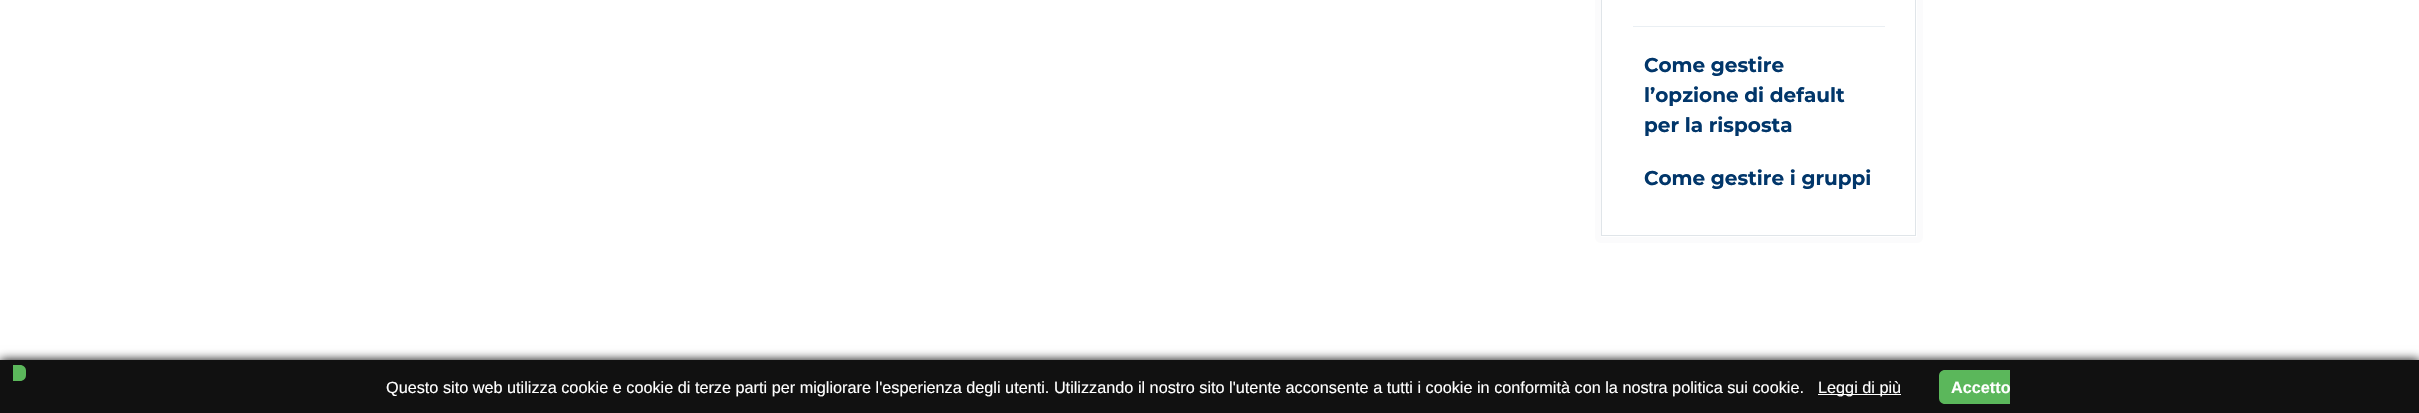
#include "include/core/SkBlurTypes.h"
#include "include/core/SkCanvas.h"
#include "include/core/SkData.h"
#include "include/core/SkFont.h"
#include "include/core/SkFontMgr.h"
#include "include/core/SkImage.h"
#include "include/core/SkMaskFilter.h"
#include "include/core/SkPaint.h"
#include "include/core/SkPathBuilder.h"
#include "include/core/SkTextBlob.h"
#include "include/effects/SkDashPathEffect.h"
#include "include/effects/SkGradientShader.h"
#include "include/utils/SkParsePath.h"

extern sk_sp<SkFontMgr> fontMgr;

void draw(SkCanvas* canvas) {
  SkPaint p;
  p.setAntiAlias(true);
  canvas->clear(SK_ColorWHITE);
  p.setStyle(SkPaint::kStroke_Style);
  p.setStrokeWidth(1);
  p.setColor(SkColorSetRGB(224, 229, 233));
  canvas->drawRect(SkRect::MakeLTRB(1601.5f, -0.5f, 1915.5f, 235.5f), p);
  p.setStrokeWidth(6);
  p.setColor(SkColorSetRGB(251, 251, 252));
  canvas->drawRoundRect(SkRect::MakeLTRB(1598, -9, 1920, 240), 3, 3, p);
  p.setStyle(SkPaint::kFill_Style);
  p.setColor(SkColorSetRGB(234, 239, 243));
  canvas->drawRect(SkRect::MakeLTRB(1633, 26, 1885, 27), p);
  p.setColor(SK_ColorBLACK);
  p.setMaskFilter(SkMaskFilter::MakeBlur(kNormal_SkBlurStyle, 5));
  canvas->drawRect(SkRect::MakeLTRB(0, 360, 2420, 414), p);
  p.setMaskFilter(nullptr);
  p.setColor(SkColorSetRGB(17, 17, 17));
  canvas->drawRect(SkRect::MakeLTRB(0, 360, 2419, 413), p);
  p.setColor(SK_ColorWHITE);
  canvas->drawRect(SkRect::MakeLTRB(1818, 394, 1901, 395), p);
  p.setColor(SkColorSetRGB(91, 183, 91));
  canvas->drawPath(SkPathBuilder().moveTo(1945, 370).lineTo(2010, 370).lineTo(2010, 404).lineTo(1945, 404).cubicTo(1941.5f, 404, 1939, 401.5f, 1939, 398).lineTo(1939, 376).cubicTo(1939, 372.5f, 1941.5f, 370, 1945, 370).close().detach(), p);
  canvas->drawPath(SkPathBuilder().moveTo(13, 365).lineTo(20, 365).cubicTo(23.5f, 365, 26, 367.5f, 26, 371).lineTo(26, 375).cubicTo(26, 378.5f, 23.5f, 381, 20, 381).lineTo(13, 381).close().detach(), p);
  SkFont font1(fontMgr->matchFamilyStyle("Montserrat", SkFontStyle::Bold()), 20);
  font1.setSubpixel(true);
  p.setColor(SkColorSetRGB(1, 54, 106));
  canvas->drawString("Come gestire", 1644, 72, font1, p);
  canvas->drawString("l’opzione di default", 1644, 102, font1, p);
  canvas->drawString("per la risposta", 1644, 132, font1, p);
  canvas->drawString("Come gestire i gruppi", 1644, 185, font1, p);
  SkFont font2(fontMgr->matchFamilyStyle("Liberation Sans", SkFontStyle::Normal()), 16.25f);
  font2.setSubpixel(true);
  p.setColor(SK_ColorWHITE);
  canvas->drawString("Questo sito web utilizza cookie e cookie di terze parti per migliorare l'esperienza degli utenti. Utilizzando il nostro sito l'utente acconsente a tutti i cookie in conformità con la nostra politica sui cookie.", 386, 393, font2, p);
  canvas->drawString("Leggi di più", 1818, 393, font2, p);
  SkFont font3(fontMgr->matchFamilyStyle("Liberation Sans", SkFontStyle::Bold()), 16.25f);
  font3.setSubpixel(true);
  canvas->drawString("Accetto", 1951, 393, font3, p);
}
